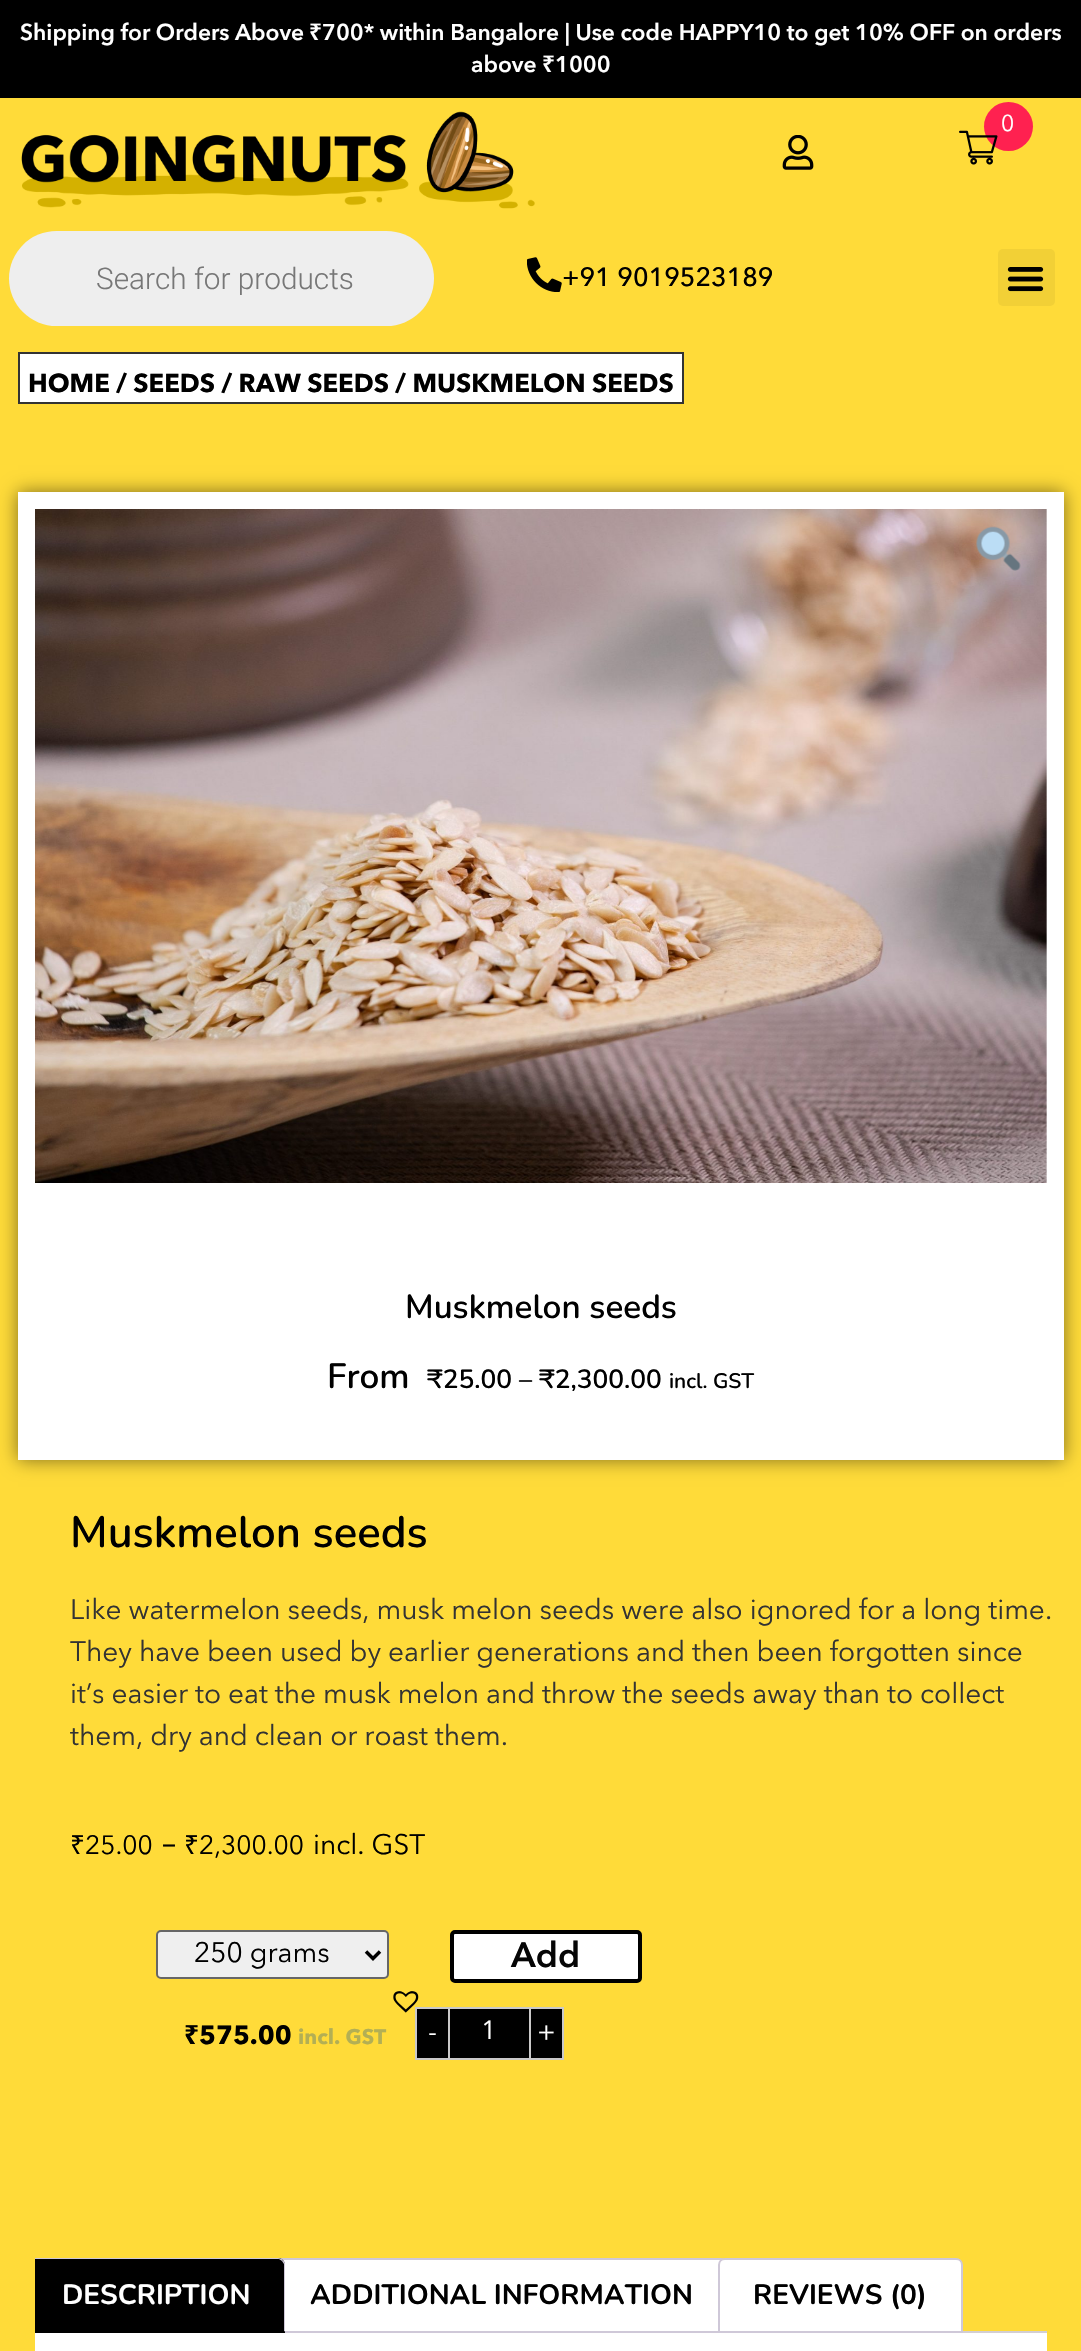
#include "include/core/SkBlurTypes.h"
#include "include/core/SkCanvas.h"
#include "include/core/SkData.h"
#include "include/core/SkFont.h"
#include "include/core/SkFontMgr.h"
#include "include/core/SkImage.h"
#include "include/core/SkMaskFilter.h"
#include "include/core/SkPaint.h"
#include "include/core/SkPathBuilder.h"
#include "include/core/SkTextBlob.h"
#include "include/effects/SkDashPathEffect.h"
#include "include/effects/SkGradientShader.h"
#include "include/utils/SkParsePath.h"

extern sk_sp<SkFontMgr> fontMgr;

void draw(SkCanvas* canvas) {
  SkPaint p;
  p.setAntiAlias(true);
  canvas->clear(SK_ColorBLACK);
  p.setColor(SkColorSetRGB(255, 219, 57));
  canvas->drawRect(SkRect::MakeLTRB(0, 98, 1081, 2351), p);
  canvas->drawImageRect(SkImages::DeferredFromEncodedData(SkData::MakeFromFileName("images/1.png")), SkRect::MakeLTRB(21, 111, 535, 209), SkSamplingOptions());
  canvas->drawImageRect(SkImages::DeferredFromEncodedData(SkData::MakeFromFileName("images/2.png")), SkRect::MakeLTRB(782, 135, 814, 170), SkSamplingOptions());
  p.setColor(SkColorSetRGB(238, 238, 238));
  canvas->drawRoundRect(SkRect::MakeLTRB(9, 231, 434, 326), 47.5f, 47.5f, p);
  canvas->drawImageRect(SkImages::DeferredFromEncodedData(SkData::MakeFromFileName("images/3.png")), SkRect::MakeLTRB(527, 257, 562, 292), SkSamplingOptions());
  p.setColor(SkColorSetRGB(242, 208, 54));
  canvas->drawRoundRect(SkRect::MakeLTRB(998, 249, 1055, 306), 5, 5, p);
  canvas->drawImageRect(SkImages::DeferredFromEncodedData(SkData::MakeFromFileName("images/4.png")), SkRect::MakeLTRB(1007, 267, 1044, 292), SkSamplingOptions());
  p.setColor(SkColorSetRGB(255, 33, 80));
  canvas->drawCircle(1008.5f, 126.5f, 24.5f, p);
  canvas->drawImageRect(SkImages::DeferredFromEncodedData(SkData::MakeFromFileName("images/5.png")), SkRect::MakeLTRB(959, 130, 998, 165), SkSamplingOptions());
  p.setColor(SK_ColorWHITE);
  canvas->drawRect(SkRect::MakeLTRB(19, 353, 683, 403), p);
  p.setStyle(SkPaint::kStroke_Style);
  p.setStrokeWidth(2);
  p.setColor(SkColorSetRGB(51, 51, 51));
  canvas->drawRect(SkRect::MakeLTRB(19, 353, 683, 403), p);
  p.setStyle(SkPaint::kFill_Style);
  p.setColor(SkColorSetARGB(128, 0, 0, 0));
  p.setMaskFilter(SkMaskFilter::MakeBlur(kNormal_SkBlurStyle, 9));
  canvas->drawRect(SkRect::MakeLTRB(18, 492, 1064, 1460), p);
  p.setMaskFilter(nullptr);
  p.setColor(SK_ColorWHITE);
  canvas->drawRect(SkRect::MakeLTRB(18, 492, 1064, 1460), p);
  canvas->drawImageRect(SkImages::DeferredFromEncodedData(SkData::MakeFromFileName("images/6.png")), SkRect::MakeLTRB(35, 509, 1047, 1183), SkSamplingOptions());
  canvas->drawImageRect(SkImages::DeferredFromEncodedData(SkData::MakeFromFileName("images/7.png")), SkRect::MakeLTRB(976, 526, 1021, 571), SkSamplingOptions());
  canvas->drawRoundRect(SkRect::MakeLTRB(452, 1932, 640, 1981), 3, 3, p);
  p.setStyle(SkPaint::kStroke_Style);
  p.setStrokeWidth(4);
  p.setColor(SK_ColorBLACK);
  canvas->drawRoundRect(SkRect::MakeLTRB(452, 1932, 640, 1981), 3, 3, p);
  p.setStyle(SkPaint::kFill_Style);
  canvas->drawRect(SkRect::MakeLTRB(416, 2008, 449, 2059), p);
  p.setStyle(SkPaint::kStroke_Style);
  p.setStrokeWidth(2);
  p.setColor(SkColorSetRGB(202, 201, 201));
  canvas->drawRect(SkRect::MakeLTRB(416, 2008, 449, 2059), p);
  canvas->drawImageRect(SkImages::DeferredFromEncodedData(SkData::MakeFromFileName("images/8.png")), SkRect::MakeLTRB(393, 1991, 419, 2013), SkSamplingOptions());
  p.setStyle(SkPaint::kFill_Style);
  p.setColor(SK_ColorBLACK);
  canvas->drawRect(SkRect::MakeLTRB(450, 2009, 529, 2058), p);
  p.setColor(SkColorSetRGB(202, 201, 201));
  canvas->drawRect(SkRect::MakeLTRB(450, 2007, 529, 2009), p);
  canvas->drawRect(SkRect::MakeLTRB(450, 2058, 529, 2060), p);
  p.setColor(SK_ColorBLACK);
  canvas->drawRect(SkRect::MakeLTRB(530, 2008, 563, 2059), p);
  p.setStyle(SkPaint::kStroke_Style);
  p.setColor(SkColorSetRGB(202, 201, 201));
  canvas->drawRect(SkRect::MakeLTRB(530, 2008, 563, 2059), p);
  p.setStyle(SkPaint::kFill_Style);
  p.setColor(SkColorSetRGB(239, 239, 239));
  canvas->drawRoundRect(SkRect::MakeLTRB(157, 1931, 388, 1978), 4, 4, p);
  p.setStyle(SkPaint::kStroke_Style);
  p.setColor(SkColorSetRGB(102, 102, 102));
  canvas->drawRoundRect(SkRect::MakeLTRB(157, 1931, 388, 1978), 4, 4, p);
  p.setStrokeWidth(3.5f);
  p.setColor(SK_ColorBLACK);
  canvas->drawPath(SkPathBuilder().moveTo(366, 1951.5f).lineTo(373, 1958.5f).lineTo(380, 1951.5f).detach(), p);
  p.setStyle(SkPaint::kFill_Style);
  p.setColor(SK_ColorWHITE);
  canvas->drawPath(SkPathBuilder().moveTo(282, 2259).lineTo(721, 2259).cubicTo(724.5f, 2259, 727, 2261.5f, 727, 2265).lineTo(727, 2332).lineTo(276, 2332).lineTo(276, 2265).cubicTo(276, 2261.5f, 278.5f, 2259, 282, 2259).close().detach(), p);
  p.setStyle(SkPaint::kStroke_Style);
  p.setStrokeWidth(2);
  p.setColor(SkColorSetRGB(207, 200, 216));
  canvas->drawPath(SkPathBuilder().moveTo(282, 2259).lineTo(721, 2259).cubicTo(724.5f, 2259, 727, 2261.5f, 727, 2265).lineTo(727, 2332).lineTo(276, 2332).lineTo(276, 2265).cubicTo(276, 2261.5f, 278.5f, 2259, 282, 2259).close().detach(), p);
  p.setStyle(SkPaint::kFill_Style);
  p.setColor(SK_ColorBLACK);
  canvas->drawPath(SkPathBuilder().moveTo(35, 2258).lineTo(278, 2258).cubicTo(282, 2258, 285, 2261, 285, 2265).lineTo(285, 2333).lineTo(35, 2333).close().detach(), p);
  canvas->save();
  canvas->clipRect(SkRect::MakeLTRB(35, 2258, 1047, 2333));
  p.setColor(SkColorSetRGB(207, 200, 216));
  canvas->drawPath(SkPathBuilder().moveTo(33, 2258).cubicTo(31, 2258, 30, 2259, 28, 2260).lineTo(29, 2261).cubicTo(30, 2260, 32, 2259, 33, 2259).lineTo(279, 2259).lineTo(282, 2261).lineTo(283, 2260).cubicTo(282, 2259, 280, 2258, 278, 2258).close().detach(), p);
  canvas->restore();
  canvas->drawPath(SkPathBuilder().moveTo(285, 2332).lineTo(285, 2263).lineTo(283, 2260).lineTo(282, 2261).lineTo(284, 2264).lineTo(284, 2331).close().detach(), p);
  canvas->save();
  canvas->clipRect(SkRect::MakeLTRB(35, 2258, 1047, 2333));
  p.setColor(SK_ColorBLACK);
  canvas->drawPath(SkPathBuilder().moveTo(285, 2332).lineTo(26, 2333).lineTo(28, 2331).lineTo(284, 2331).close().detach(), p);
  canvas->restore();
  p.setColor(SK_ColorWHITE);
  canvas->drawPath(SkPathBuilder().moveTo(725, 2259).lineTo(956, 2259).cubicTo(959.5f, 2259, 962, 2261.5f, 962, 2265).lineTo(962, 2332).lineTo(719, 2332).lineTo(719, 2265).cubicTo(719, 2261.5f, 721.5f, 2259, 725, 2259).close().detach(), p);
  p.setStyle(SkPaint::kStroke_Style);
  p.setColor(SkColorSetRGB(207, 200, 216));
  canvas->drawPath(SkPathBuilder().moveTo(725, 2259).lineTo(956, 2259).cubicTo(959.5f, 2259, 962, 2261.5f, 962, 2265).lineTo(962, 2332).lineTo(719, 2332).lineTo(719, 2265).cubicTo(719, 2261.5f, 721.5f, 2259, 725, 2259).close().detach(), p);
  p.setStyle(SkPaint::kFill_Style);
  p.setColor(SK_ColorWHITE);
  canvas->drawRect(SkRect::MakeLTRB(35, 2333, 1047, 2351), p);
  p.setColor(SkColorSetRGB(211, 206, 210));
  canvas->drawRect(SkRect::MakeLTRB(963, 2331, 1047, 2333), p);
  SkFont font1(fontMgr->matchFamilyStyle("Avenir Next", SkFontStyle(600, SkFontStyle::kNormal_Width, SkFontStyle::kUpright_Slant)), 22.75f);
  font1.setSubpixel(true);
  p.setColor(SK_ColorWHITE);
  canvas->drawString("Shipping for Orders Above", 20, 40, font1, p);
  SkFont font2(fontMgr->matchFamilyStyle("Noto Sans", SkFontStyle(600, SkFontStyle::kNormal_Width, SkFontStyle::kUpright_Slant)), 22.75f);
  font2.setSubpixel(true);
  canvas->drawString("₹", 309, 40, font2, p);
  canvas->drawString("700* within Bangalore | Use code HAPPY10 to get 10% OFF on orders", 322, 40, font1, p);
  canvas->drawString("above", 471, 72, font1, p);
  canvas->drawString("₹", 542, 72, font2, p);
  canvas->drawString("1000", 555, 72, font1, p);
  SkFont font3(fontMgr->matchFamilyStyle("Roboto", SkFontStyle(300, SkFontStyle::kNormal_Width, SkFontStyle::kUpright_Slant)), 29.75f);
  font3.setSubpixel(true);
  p.setColor(SkColorSetRGB(119, 119, 119));
  canvas->drawString("Search for products", 96, 289, font3, p);
  SkFont font4(fontMgr->matchFamilyStyle("Avenir Next", SkFontStyle(500, SkFontStyle::kNormal_Width, SkFontStyle::kUpright_Slant)), 26.25f);
  font4.setSubpixel(true);
  p.setColor(SK_ColorBLACK);
  canvas->drawString("+91 9019523189", 562, 286, font4, p);
  SkFont font5(fontMgr->matchFamilyStyle("Avenir Next", SkFontStyle::Normal()), 22.75f);
  font5.setSubpixel(true);
  p.setColor(SK_ColorWHITE);
  canvas->drawString("0", 1001, 131, font5, p);
  SkFont font6(fontMgr->matchFamilyStyle("Avenir Next", SkFontStyle::Bold()), 25.75f);
  font6.setSubpixel(true);
  p.setColor(SK_ColorBLACK);
  canvas->drawString("HOME / SEEDS / RAW SEEDS / MUSKMELON SEEDS", 28, 392, font6, p);
  SkFont font7(fontMgr->matchFamilyStyle("Nunito", SkFontStyle(600, SkFontStyle::kNormal_Width, SkFontStyle::kUpright_Slant)), 33.25f);
  font7.setSubpixel(true);
  canvas->drawString("Muskmelon seeds", 405, 1318, font7, p);
  SkFont font8(fontMgr->matchFamilyStyle("Nunito", SkFontStyle(600, SkFontStyle::kNormal_Width, SkFontStyle::kUpright_Slant)), 35);
  font8.setSubpixel(true);
  canvas->drawString("From", 327, 1388, font8, p);
  SkFont font9(fontMgr->matchFamilyStyle("Nunito", SkFontStyle(600, SkFontStyle::kNormal_Width, SkFontStyle::kUpright_Slant)), 26.25f);
  font9.setSubpixel(true);
  canvas->drawString("₹25.00 – ₹2,300.00", 427, 1388, font9, p);
  SkFont font10(fontMgr->matchFamilyStyle("Nunito", SkFontStyle(600, SkFontStyle::kNormal_Width, SkFontStyle::kUpright_Slant)), 21);
  font10.setSubpixel(true);
  canvas->drawString("incl. GST", 669, 1388, font10, p);
  SkFont font11(fontMgr->matchFamilyStyle("Nunito", SkFontStyle(600, SkFontStyle::kNormal_Width, SkFontStyle::kUpright_Slant)), 43.75f);
  font11.setSubpixel(true);
  canvas->drawString("Muskmelon seeds", 70, 1547, font11, p);
  SkFont font12(fontMgr->matchFamilyStyle("Avenir Next", SkFontStyle::Normal()), 28);
  font12.setSubpixel(true);
  p.setColor(SkColorSetRGB(51, 51, 51));
  canvas->drawString("Like watermelon seeds, musk melon seeds were also ignored for a long time.", 70, 1619, font12, p);
  canvas->drawString("They have been used by earlier generations and then been forgotten since", 70, 1661, font12, p);
  canvas->drawString("it’s easier to eat the musk melon and throw the seeds away than to collect", 70, 1703, font12, p);
  canvas->drawString("them, dry and clean or roast them.", 70, 1745, font12, p);
  SkFont font13(fontMgr->matchFamilyStyle("Noto Sans", SkFontStyle::Normal()), 26.25f);
  font13.setSubpixel(true);
  p.setColor(SK_ColorBLACK);
  canvas->drawString("₹", 70, 1854, font13, p);
  SkFont font14(fontMgr->matchFamilyStyle("Avenir Next", SkFontStyle::Normal()), 26.25f);
  font14.setSubpixel(true);
  canvas->drawString("25.00", 85, 1854, font14, p);
  SkFont font15(fontMgr->matchFamilyStyle("Avenir Next", SkFontStyle::Normal()), 35);
  font15.setSubpixel(true);
  canvas->drawString("–", 162, 1854, font15, p);
  canvas->drawString("₹", 184, 1854, font13, p);
  canvas->drawString("2,300.00", 199, 1854, font14, p);
  canvas->drawString("incl. GST", 313, 1854, font12, p);
  SkFont font16(fontMgr->matchFamilyStyle("Noto Sans", SkFontStyle::Bold()), 26.25f);
  font16.setSubpixel(true);
  canvas->drawString("₹", 184, 2044, font16, p);
  SkFont font17(fontMgr->matchFamilyStyle("Avenir Next", SkFontStyle::Bold()), 26.25f);
  font17.setSubpixel(true);
  canvas->drawString("575.00", 199, 2044, font17, p);
  SkFont font18(fontMgr->matchFamilyStyle("Avenir Next", SkFontStyle::Bold()), 21);
  font18.setSubpixel(true);
  p.setColor(SkColorSetRGB(179, 175, 84));
  canvas->drawString("incl. GST", 298, 2044, font18, p);
  SkFont font19(fontMgr->matchFamilyStyle("Avenir Next", SkFontStyle(600, SkFontStyle::kNormal_Width, SkFontStyle::kUpright_Slant)), 35);
  font19.setSubpixel(true);
  p.setColor(SkColorSetRGB(6, 6, 6));
  canvas->drawString("Add", 511, 1967, font19, p);
  p.setColor(SK_ColorWHITE);
  canvas->drawString("-", 428, 2041, font12, p);
  canvas->drawString("1", 481, 2039, font14, p);
  canvas->drawString("+", 537, 2041, font12, p);
  p.setColor(SK_ColorBLACK);
  canvas->drawString("250 grams", 194, 1962, font12, p);
  SkFont font20(fontMgr->matchFamilyStyle("Nunito", SkFontStyle::Bold()), 28);
  font20.setSubpixel(true);
  p.setColor(SK_ColorWHITE);
  canvas->drawString("DESCRIPTION", 62, 2304, font20, p);
  p.setColor(SK_ColorBLACK);
  canvas->drawString("ADDITIONAL INFORMATION", 310, 2304, font20, p);
  canvas->drawString("REVIEWS (0)", 753, 2304, font20, p);
}
